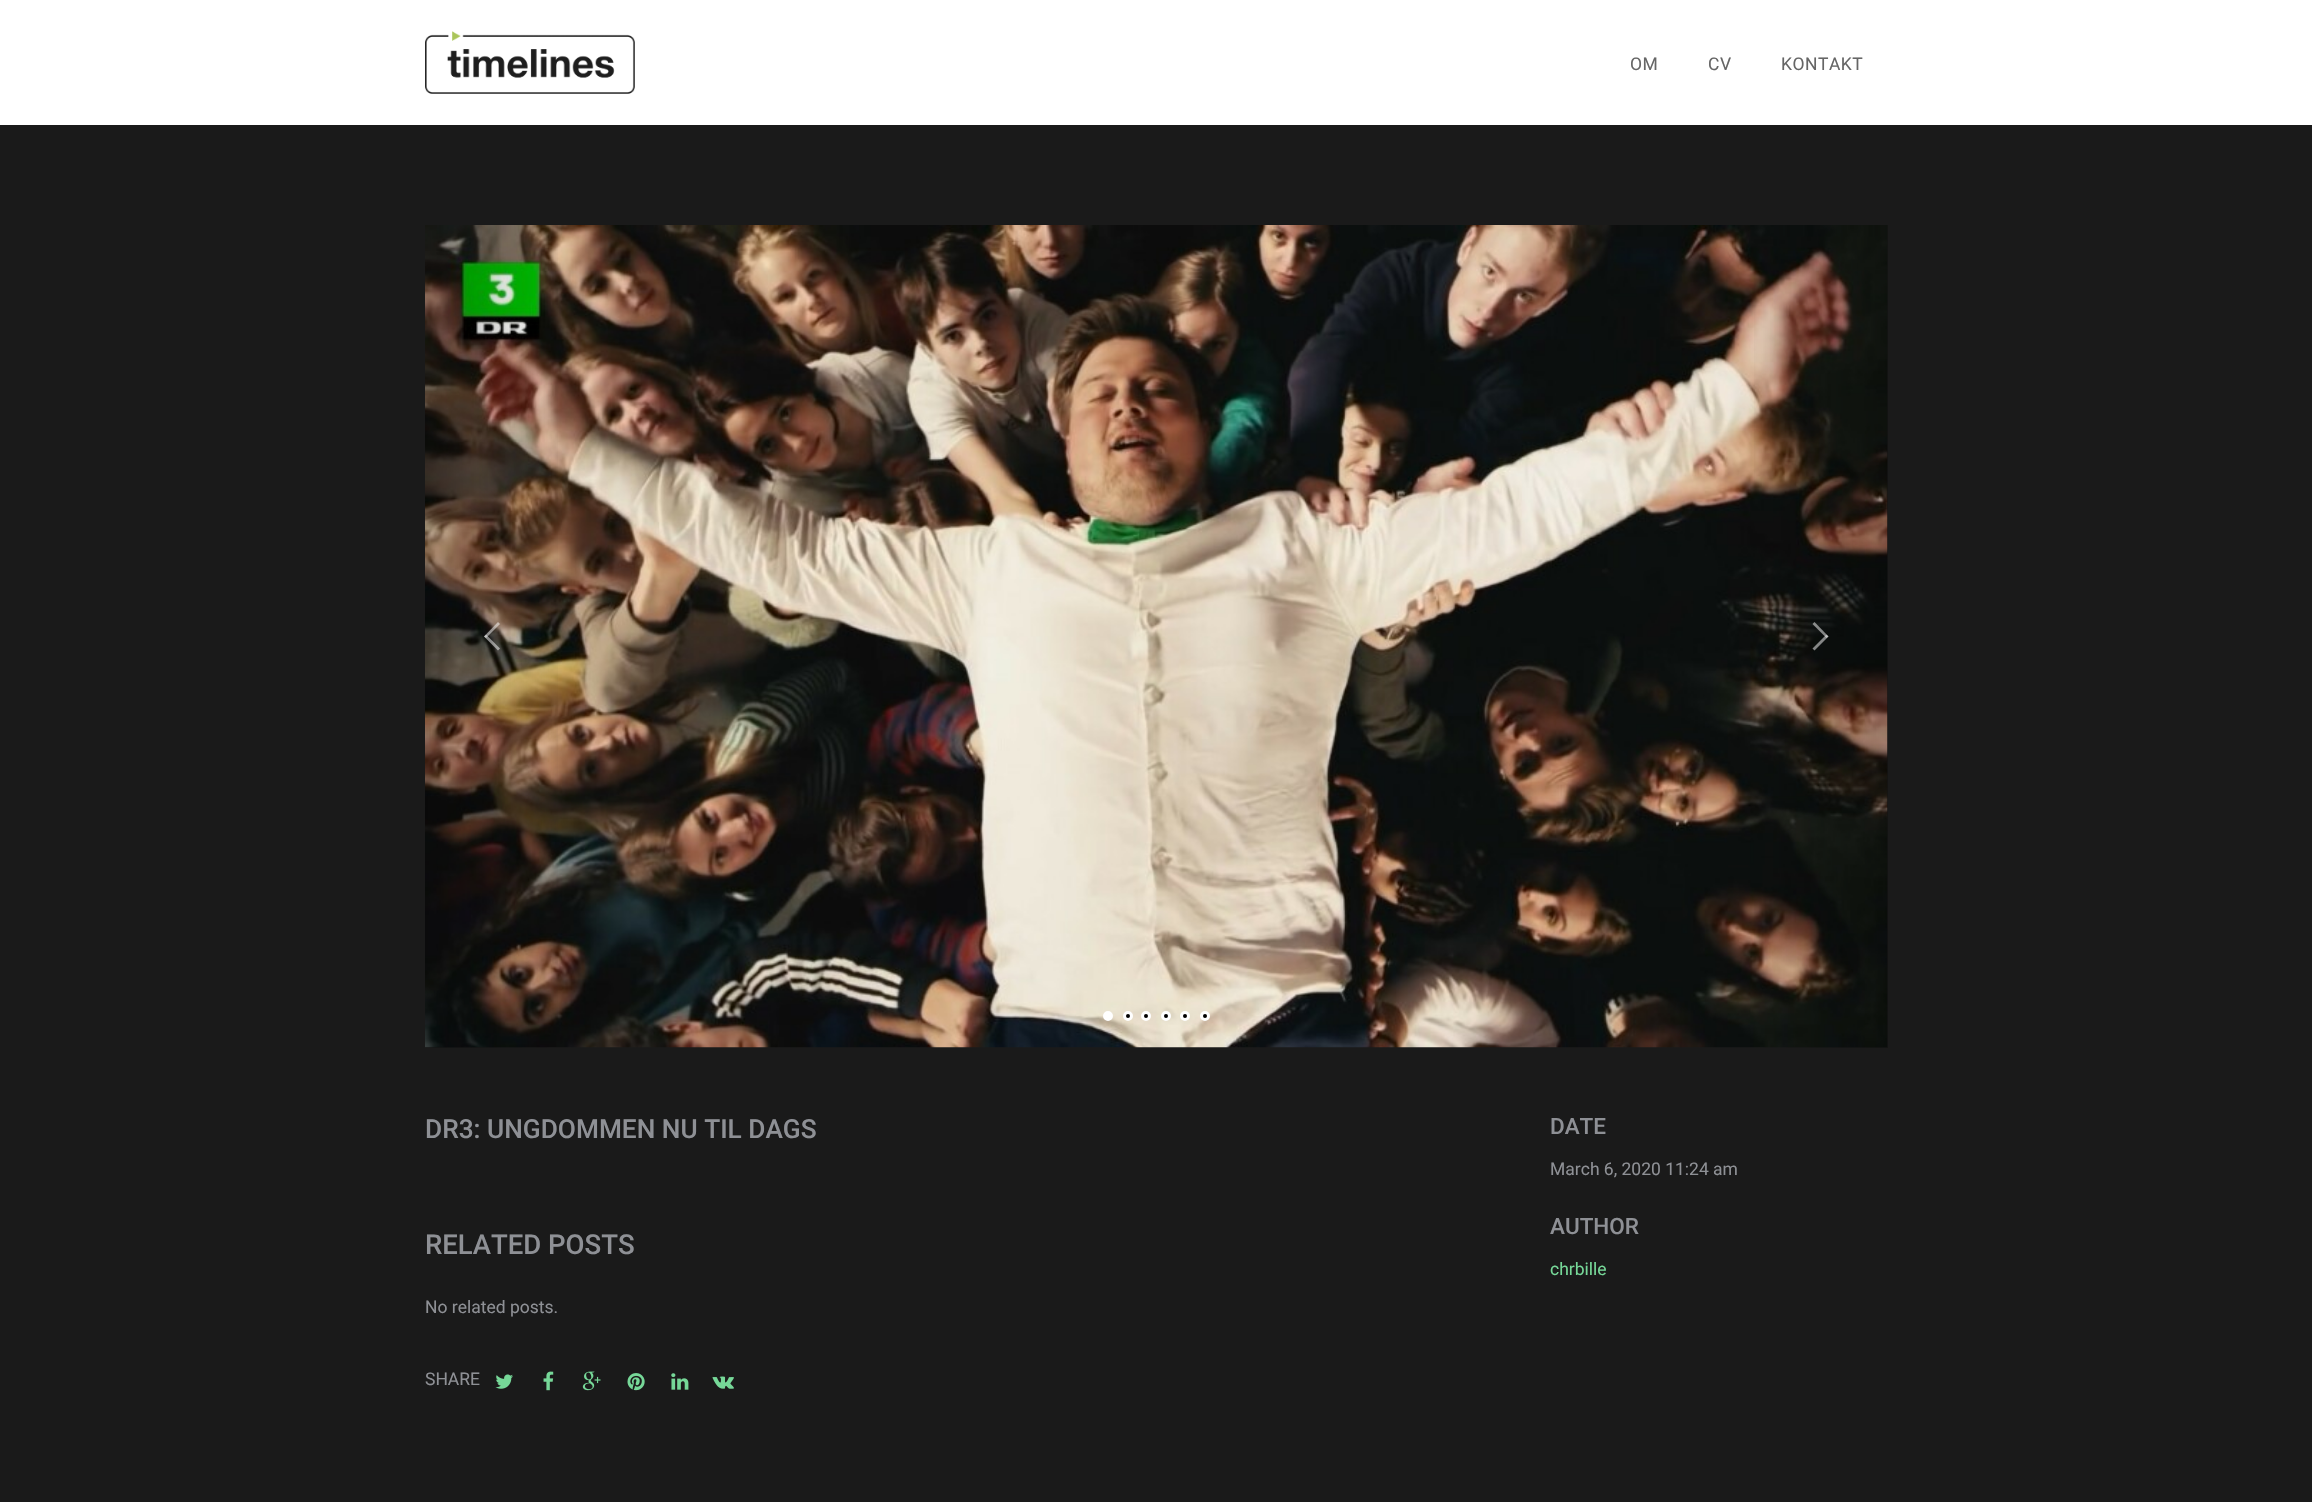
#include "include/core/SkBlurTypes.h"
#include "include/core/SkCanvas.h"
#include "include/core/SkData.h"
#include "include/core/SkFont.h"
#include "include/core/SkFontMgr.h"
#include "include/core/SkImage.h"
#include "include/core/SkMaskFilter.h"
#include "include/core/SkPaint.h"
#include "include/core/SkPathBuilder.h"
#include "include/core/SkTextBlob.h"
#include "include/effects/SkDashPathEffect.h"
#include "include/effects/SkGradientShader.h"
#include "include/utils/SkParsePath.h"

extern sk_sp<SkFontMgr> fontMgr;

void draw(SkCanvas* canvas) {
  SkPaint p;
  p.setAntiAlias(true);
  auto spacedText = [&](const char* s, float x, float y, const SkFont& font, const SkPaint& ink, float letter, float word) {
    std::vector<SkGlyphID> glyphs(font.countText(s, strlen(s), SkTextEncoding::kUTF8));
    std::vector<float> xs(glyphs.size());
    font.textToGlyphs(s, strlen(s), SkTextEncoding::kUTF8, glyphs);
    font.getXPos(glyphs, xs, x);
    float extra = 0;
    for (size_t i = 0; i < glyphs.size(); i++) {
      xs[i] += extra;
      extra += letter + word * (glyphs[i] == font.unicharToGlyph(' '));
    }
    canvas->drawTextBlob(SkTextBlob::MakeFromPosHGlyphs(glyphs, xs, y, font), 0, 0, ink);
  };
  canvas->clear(SK_ColorWHITE);
  canvas->drawImageRect(SkImages::DeferredFromEncodedData(SkData::MakeFromFileName("images/1.png")), SkRect::MakeLTRB(425, 31, 635, 94), SkSamplingOptions());
  p.setColor(SkColorSetRGB(26, 26, 26));
  canvas->drawRect(SkRect::MakeLTRB(0, 125, 2312, 1502), p);
  canvas->drawImageRect(SkImages::DeferredFromEncodedData(SkData::MakeFromFileName("images/2.png")), SkRect::MakeLTRB(425, 225, 1888, 1048), SkSamplingOptions());
  {
    const SkColor colors[] = {SkColorSetARGB(64, 0, 0, 0), SkColorSetARGB(0, 0, 0, 0)};
    const float stops[] = {0, 1};
    const SkPoint ends[] = {{425, 636}, {571, 636}};
    p.setShader(SkGradientShader::MakeLinear(ends, colors, stops, 2, SkTileMode::kClamp));
    p.setAlpha(255);
  }
  canvas->drawRect(SkRect::MakeLTRB(425, 225, 558, 1048), p);
  p.setShader(nullptr);
  p.setColor(SkColorSetARGB(128, 255, 255, 255));
  canvas->drawPath(SkPathBuilder().moveTo(484, 636.5f).lineTo(498, 622).lineTo(500, 624).lineTo(486, 638).close().detach(), p);
  canvas->drawPath(SkPathBuilder().moveTo(484, 636.5f).lineTo(486, 634.5f).lineTo(500, 648.5f).lineTo(498, 650.5f).close().detach(), p);
  p.setColor(SK_ColorWHITE);
  canvas->drawCircle(1108, 1016, 3.5f, p);
  p.setStyle(SkPaint::kStroke_Style);
  p.setStrokeWidth(3);
  canvas->drawCircle(1108, 1016, 3.5f, p);
  p.setStyle(SkPaint::kFill_Style);
  p.setColor(SK_ColorBLACK);
  canvas->drawCircle(1128, 1016, 3.5f, p);
  p.setStyle(SkPaint::kStroke_Style);
  p.setColor(SK_ColorWHITE);
  canvas->drawCircle(1128, 1016, 3.5f, p);
  p.setStyle(SkPaint::kFill_Style);
  p.setColor(SK_ColorBLACK);
  canvas->drawCircle(1146, 1016, 3.5f, p);
  p.setStyle(SkPaint::kStroke_Style);
  p.setColor(SK_ColorWHITE);
  canvas->drawCircle(1146, 1016, 3.5f, p);
  p.setStyle(SkPaint::kFill_Style);
  p.setColor(SK_ColorBLACK);
  canvas->drawCircle(1166, 1016, 3.5f, p);
  p.setStyle(SkPaint::kStroke_Style);
  p.setColor(SK_ColorWHITE);
  canvas->drawCircle(1166, 1016, 3.5f, p);
  p.setStyle(SkPaint::kFill_Style);
  p.setColor(SK_ColorBLACK);
  canvas->drawCircle(1185, 1016, 3.5f, p);
  p.setStyle(SkPaint::kStroke_Style);
  p.setColor(SK_ColorWHITE);
  canvas->drawCircle(1185, 1016, 3.5f, p);
  p.setStyle(SkPaint::kFill_Style);
  p.setColor(SK_ColorBLACK);
  canvas->drawCircle(1205, 1016, 3.5f, p);
  p.setStyle(SkPaint::kStroke_Style);
  p.setColor(SK_ColorWHITE);
  canvas->drawCircle(1205, 1016, 3.5f, p);
  p.setStyle(SkPaint::kFill_Style);
  {
    const SkColor colors[] = {SkColorSetARGB(0, 0, 0, 0), SkColorSetARGB(64, 0, 0, 0)};
    const float stops[] = {0, 1};
    const SkPoint ends[] = {{1741, 636}, {1888, 636}};
    p.setShader(SkGradientShader::MakeLinear(ends, colors, stops, 2, SkTileMode::kClamp));
    p.setAlpha(255);
  }
  canvas->drawRect(SkRect::MakeLTRB(1754, 225, 1888, 1048), p);
  p.setShader(nullptr);
  p.setColor(SkColorSetARGB(128, 255, 255, 255));
  canvas->drawPath(SkPathBuilder().moveTo(1828.5f, 636.5f).lineTo(1814.5f, 650.5f).lineTo(1812.5f, 648.5f).lineTo(1826.5f, 634.5f).close().detach(), p);
  canvas->drawPath(SkPathBuilder().moveTo(1828.5f, 636.5f).lineTo(1826.5f, 638).lineTo(1812.5f, 624).lineTo(1814.5f, 622).close().detach(), p);
  canvas->drawImageRect(SkImages::DeferredFromEncodedData(SkData::MakeFromFileName("images/3.png")), SkRect::MakeLTRB(495, 1374, 513, 1389), SkSamplingOptions());
  canvas->drawImageRect(SkImages::DeferredFromEncodedData(SkData::MakeFromFileName("images/4.png")), SkRect::MakeLTRB(543, 1371, 554, 1391), SkSamplingOptions());
  canvas->drawImageRect(SkImages::DeferredFromEncodedData(SkData::MakeFromFileName("images/5.png")), SkRect::MakeLTRB(582, 1371, 601, 1391), SkSamplingOptions());
  canvas->drawImageRect(SkImages::DeferredFromEncodedData(SkData::MakeFromFileName("images/6.png")), SkRect::MakeLTRB(627, 1373, 645, 1391), SkSamplingOptions());
  canvas->drawImageRect(SkImages::DeferredFromEncodedData(SkData::MakeFromFileName("images/7.png")), SkRect::MakeLTRB(671, 1373, 689, 1390), SkSamplingOptions());
  canvas->drawImageRect(SkImages::DeferredFromEncodedData(SkData::MakeFromFileName("images/8.png")), SkRect::MakeLTRB(712, 1376, 734, 1389), SkSamplingOptions());
  SkFont font1(fontMgr->matchFamilyStyle("Roboto", SkFontStyle::Normal()), 17.5f);
  font1.setSubpixel(true);
  p.setColor(SkColorSetRGB(102, 102, 102));
  spacedText("OM", 1630, 70, font1, p, 0.5f, 0);
  spacedText("CV", 1708, 70, font1, p, 0.5f, 0);
  spacedText("KONTAKT", 1781, 70, font1, p, 0.5f, 0);
  SkFont font2(fontMgr->matchFamilyStyle("Roboto", SkFontStyle(500, SkFontStyle::kNormal_Width, SkFontStyle::kUpright_Slant)), 26.25f);
  font2.setSubpixel(true);
  p.setColor(SkColorSetRGB(142, 144, 149));
  canvas->drawString("DR3: UNGDOMMEN NU TIL DAGS", 425, 1138, font2, p);
  SkFont font3(fontMgr->matchFamilyStyle("Roboto", SkFontStyle(500, SkFontStyle::kNormal_Width, SkFontStyle::kUpright_Slant)), 27.5f);
  font3.setSubpixel(true);
  canvas->drawString("RELATED POSTS", 425, 1254, font3, p);
  canvas->drawString("No related posts.", 425, 1313, font1, p);
  canvas->drawString("SHARE", 425, 1385, font1, p);
  SkFont font4(fontMgr->matchFamilyStyle("Roboto", SkFontStyle(500, SkFontStyle::kNormal_Width, SkFontStyle::kUpright_Slant)), 22.5f);
  font4.setSubpixel(true);
  canvas->drawString("DATE", 1550, 1134, font4, p);
  canvas->drawString("March 6, 2020 11:24 am", 1550, 1175, font1, p);
  canvas->drawString("AUTHOR", 1550, 1234, font4, p);
  p.setColor(SkColorSetRGB(118, 216, 152));
  canvas->drawString("chrbille", 1550, 1275, font1, p);
}
